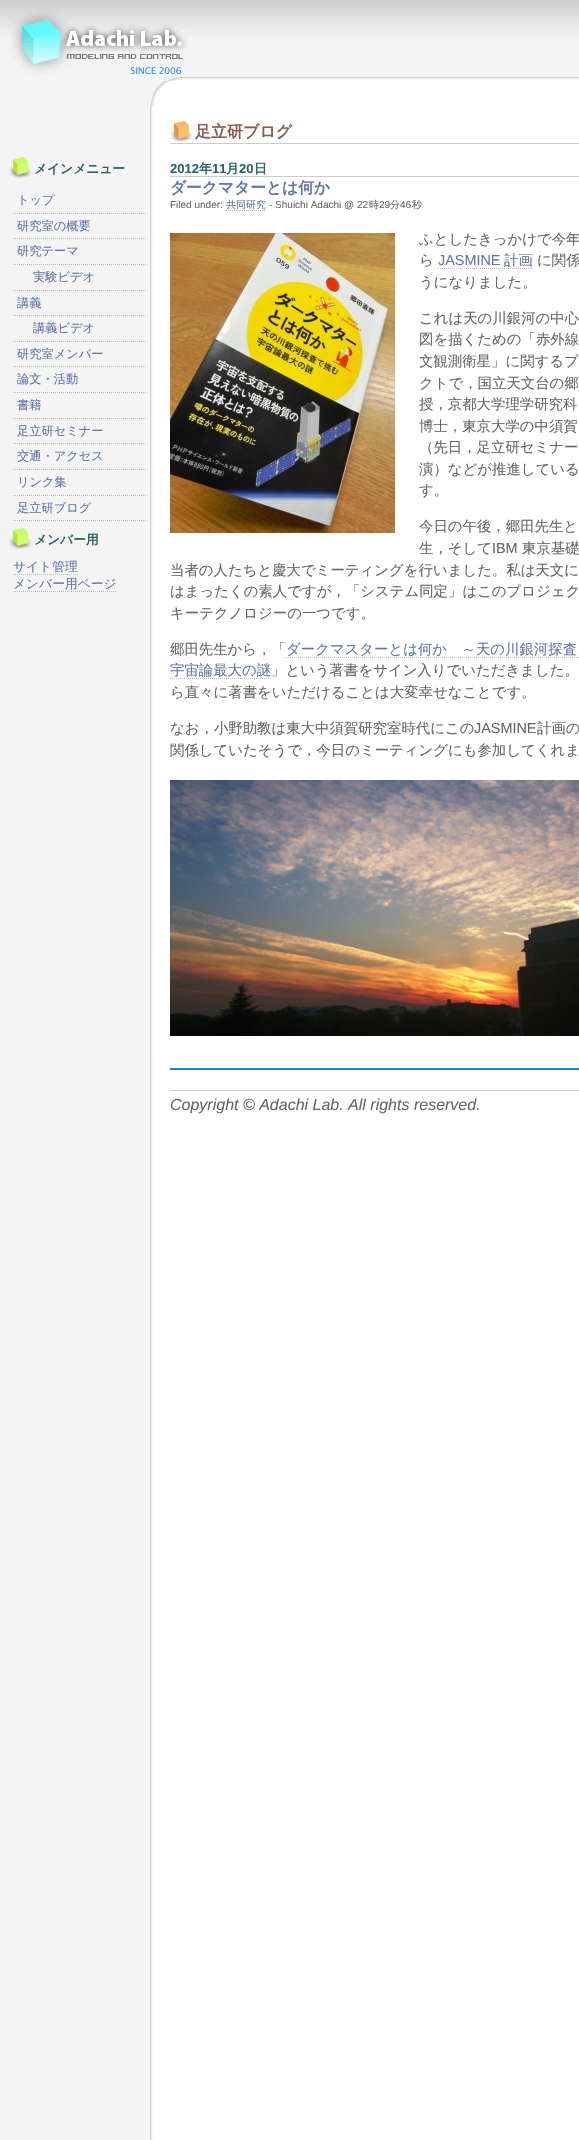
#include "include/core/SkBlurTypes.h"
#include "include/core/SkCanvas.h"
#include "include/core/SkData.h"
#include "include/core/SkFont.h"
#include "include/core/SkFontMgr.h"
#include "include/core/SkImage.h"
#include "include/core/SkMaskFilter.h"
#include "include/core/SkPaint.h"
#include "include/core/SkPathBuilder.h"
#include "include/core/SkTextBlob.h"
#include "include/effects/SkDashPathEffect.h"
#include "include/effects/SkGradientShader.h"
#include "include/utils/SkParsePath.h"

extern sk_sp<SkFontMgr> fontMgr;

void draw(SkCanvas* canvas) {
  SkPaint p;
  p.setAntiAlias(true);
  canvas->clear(SK_ColorWHITE);
  canvas->drawImageRect(SkImages::DeferredFromEncodedData(SkData::MakeFromFileName("images/1.png")), SkRect::MakeLTRB(0, 81, 153, 2140), SkSamplingOptions());
  canvas->drawImageRect(SkImages::DeferredFromEncodedData(SkData::MakeFromFileName("images/2.png")), SkRect::MakeLTRB(0, 0, 579, 81), SkSamplingOptions());
  canvas->drawImageRect(SkImages::DeferredFromEncodedData(SkData::MakeFromFileName("images/3.png")), SkRect::MakeLTRB(0, 77, 180, 81), SkSamplingOptions());
  canvas->drawImageRect(SkImages::DeferredFromEncodedData(SkData::MakeFromFileName("images/4.png")), SkRect::MakeLTRB(0, 7, 192, 76), SkSamplingOptions());
  canvas->drawImageRect(SkImages::DeferredFromEncodedData(SkData::MakeFromFileName("images/5.png")), SkRect::MakeLTRB(150, 81, 170, 106), SkSamplingOptions());
  canvas->drawImageRect(SkImages::DeferredFromEncodedData(SkData::MakeFromFileName("images/6.png")), SkRect::MakeLTRB(9, 157, 32, 178), SkSamplingOptions());
  p.setStyle(SkPaint::kStroke_Style);
  p.setStrokeWidth(1);
  p.setColor(SkColorSetRGB(187, 187, 187));
  p.setPathEffect(SkDashPathEffect::Make({{1, 1}}, 0));
  canvas->drawPath(SkPathBuilder().moveTo(13, 213.5f).lineTo(146, 213.5f).detach(), p);
  p.setPathEffect(nullptr);
  p.setPathEffect(SkDashPathEffect::Make({{1, 1}}, 0));
  canvas->drawPath(SkPathBuilder().moveTo(13, 238.5f).lineTo(146, 238.5f).detach(), p);
  p.setPathEffect(nullptr);
  p.setPathEffect(SkDashPathEffect::Make({{1, 1}}, 0));
  canvas->drawPath(SkPathBuilder().moveTo(13, 264.5f).lineTo(146, 264.5f).detach(), p);
  p.setPathEffect(nullptr);
  p.setPathEffect(SkDashPathEffect::Make({{1, 1}}, 0));
  canvas->drawPath(SkPathBuilder().moveTo(13, 290.5f).lineTo(146, 290.5f).detach(), p);
  p.setPathEffect(nullptr);
  p.setPathEffect(SkDashPathEffect::Make({{1, 1}}, 0));
  canvas->drawPath(SkPathBuilder().moveTo(13, 315.5f).lineTo(146, 315.5f).detach(), p);
  p.setPathEffect(nullptr);
  p.setPathEffect(SkDashPathEffect::Make({{1, 1}}, 0));
  canvas->drawPath(SkPathBuilder().moveTo(13, 341.5f).lineTo(146, 341.5f).detach(), p);
  p.setPathEffect(nullptr);
  p.setPathEffect(SkDashPathEffect::Make({{1, 1}}, 0));
  canvas->drawPath(SkPathBuilder().moveTo(13, 366.5f).lineTo(146, 366.5f).detach(), p);
  p.setPathEffect(nullptr);
  p.setPathEffect(SkDashPathEffect::Make({{1, 1}}, 0));
  canvas->drawPath(SkPathBuilder().moveTo(13, 392.5f).lineTo(146, 392.5f).detach(), p);
  p.setPathEffect(nullptr);
  p.setPathEffect(SkDashPathEffect::Make({{1, 1}}, 0));
  canvas->drawPath(SkPathBuilder().moveTo(13, 418.5f).lineTo(146, 418.5f).detach(), p);
  p.setPathEffect(nullptr);
  p.setPathEffect(SkDashPathEffect::Make({{1, 1}}, 0));
  canvas->drawPath(SkPathBuilder().moveTo(13, 443.5f).lineTo(146, 443.5f).detach(), p);
  p.setPathEffect(nullptr);
  p.setPathEffect(SkDashPathEffect::Make({{1, 1}}, 0));
  canvas->drawPath(SkPathBuilder().moveTo(13, 469.5f).lineTo(146, 469.5f).detach(), p);
  p.setPathEffect(nullptr);
  p.setPathEffect(SkDashPathEffect::Make({{1, 1}}, 0));
  canvas->drawPath(SkPathBuilder().moveTo(13, 495.5f).lineTo(146, 495.5f).detach(), p);
  p.setPathEffect(nullptr);
  p.setPathEffect(SkDashPathEffect::Make({{1, 1}}, 0));
  canvas->drawPath(SkPathBuilder().moveTo(13, 520.5f).lineTo(146, 520.5f).detach(), p);
  p.setPathEffect(nullptr);
  canvas->drawImageRect(SkImages::DeferredFromEncodedData(SkData::MakeFromFileName("images/6.png")), SkRect::MakeLTRB(9, 528, 32, 549), SkSamplingOptions());
  p.setPathEffect(SkDashPathEffect::Make({{1, 1}}, 0));
  canvas->drawPath(SkPathBuilder().moveTo(13, 574.5f).lineTo(78, 574.5f).detach(), p);
  p.setPathEffect(nullptr);
  p.setPathEffect(SkDashPathEffect::Make({{1, 1}}, 0));
  canvas->drawPath(SkPathBuilder().moveTo(13, 591.5f).lineTo(117, 591.5f).detach(), p);
  p.setPathEffect(nullptr);
  canvas->drawImageRect(SkImages::DeferredFromEncodedData(SkData::MakeFromFileName("images/7.png")), SkRect::MakeLTRB(170, 121, 193, 142), SkSamplingOptions());
  p.setStyle(SkPaint::kFill_Style);
  p.setColor(SkColorSetRGB(204, 204, 204));
  canvas->drawRect(SkRect::MakeLTRB(170, 143, 579, 144), p);
  canvas->drawRect(SkRect::MakeLTRB(170, 176, 579, 177), p);
  p.setStyle(SkPaint::kStroke_Style);
  p.setColor(SkColorSetRGB(187, 187, 187));
  p.setPathEffect(SkDashPathEffect::Make({{1, 1}}, 0));
  canvas->drawPath(SkPathBuilder().moveTo(226, 210.5f).lineTo(266, 210.5f).detach(), p);
  p.setPathEffect(nullptr);
  canvas->drawImageRect(SkImages::DeferredFromEncodedData(SkData::MakeFromFileName("images/8.png")), SkRect::MakeLTRB(170, 233, 395, 533), SkSamplingOptions());
  p.setPathEffect(SkDashPathEffect::Make({{1, 1}}, 0));
  canvas->drawPath(SkPathBuilder().moveTo(438, 268.5f).lineTo(533, 268.5f).detach(), p);
  p.setPathEffect(nullptr);
  p.setPathEffect(SkDashPathEffect::Make({{1, 1}}, 0));
  canvas->drawPath(SkPathBuilder().moveTo(286, 657.5f).lineTo(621, 657.5f).detach(), p);
  p.setPathEffect(nullptr);
  p.setPathEffect(SkDashPathEffect::Make({{1, 1}}, 0));
  canvas->drawPath(SkPathBuilder().moveTo(170, 678.5f).lineTo(271, 678.5f).detach(), p);
  p.setPathEffect(nullptr);
  canvas->drawImageRect(SkImages::DeferredFromEncodedData(SkData::MakeFromFileName("images/9.png")), SkRect::MakeLTRB(170, 780, 579, 1036), SkSamplingOptions());
  p.setStyle(SkPaint::kFill_Style);
  p.setColor(SkColorSetRGB(12, 140, 205));
  canvas->drawRect(SkRect::MakeLTRB(170, 1068, 579, 1070), p);
  p.setColor(SkColorSetRGB(204, 204, 204));
  canvas->drawRect(SkRect::MakeLTRB(170, 1090, 579, 1091), p);
  SkFont font1(fontMgr->matchFamilyStyle("WenQuanYi Zen Hei", SkFontStyle::Bold()), 12.75f);
  font1.setSubpixel(true);
  p.setColor(SkColorSetRGB(40, 99, 103));
  canvas->drawString("メインメニュー", 34, 173, font1, p);
  SkFont font2(fontMgr->matchFamilyStyle("WenQuanYi Zen Hei", SkFontStyle(500, SkFontStyle::kNormal_Width, SkFontStyle::kUpright_Slant)), 12.25f);
  font2.setSubpixel(true);
  p.setColor(SkColorSetRGB(96, 117, 170));
  canvas->drawString("トップ", 17, 204, font2, p);
  canvas->drawString("研究室の概要", 17, 230, font2, p);
  canvas->drawString("研究テーマ", 17, 255, font2, p);
  canvas->drawString("実験ビデオ", 33, 281, font2, p);
  canvas->drawString("講義", 17, 307, font2, p);
  canvas->drawString("講義ビデオ", 33, 332, font2, p);
  canvas->drawString("研究室メンバー", 17, 358, font2, p);
  canvas->drawString("論文・活動", 17, 383, font2, p);
  canvas->drawString("書籍", 17, 409, font2, p);
  canvas->drawString("足立研セミナー", 17, 435, font2, p);
  canvas->drawString("交通・アクセス", 17, 460, font2, p);
  canvas->drawString("リンク集", 17, 486, font2, p);
  canvas->drawString("足立研ブログ", 17, 512, font2, p);
  p.setColor(SkColorSetRGB(40, 99, 103));
  canvas->drawString("メンバー用", 34, 544, font1, p);
  SkFont font3(fontMgr->matchFamilyStyle("WenQuanYi Zen Hei", SkFontStyle(500, SkFontStyle::kNormal_Width, SkFontStyle::kUpright_Slant)), 12.75f);
  font3.setSubpixel(true);
  p.setColor(SkColorSetRGB(96, 117, 170));
  canvas->drawString("サイト管理", 13, 571, font3, p);
  canvas->drawString("メンバー用ページ", 13, 588, font3, p);
  SkFont font4(fontMgr->matchFamilyStyle("WenQuanYi Zen Hei", SkFontStyle::Bold()), 16);
  font4.setSubpixel(true);
  p.setColor(SkColorSetRGB(139, 91, 78));
  canvas->drawString("足立研ブログ", 195, 137, font4, p);
  SkFont font5(fontMgr->matchFamilyStyle("Liberation Sans", SkFontStyle::Bold()), 13);
  font5.setSubpixel(true);
  p.setColor(SkColorSetRGB(40, 99, 103));
  canvas->drawString("2012", 170, 173, font5, p);
  SkFont font6(fontMgr->matchFamilyStyle("WenQuanYi Zen Hei", SkFontStyle::Bold()), 13);
  font6.setSubpixel(true);
  canvas->drawString("年", 199, 173, font6, p);
  canvas->drawString("11", 212, 173, font5, p);
  canvas->drawString("月", 226, 173, font6, p);
  canvas->drawString("20", 239, 173, font5, p);
  canvas->drawString("日", 254, 173, font6, p);
  SkFont font7(fontMgr->matchFamilyStyle("WenQuanYi Zen Hei", SkFontStyle::Bold()), 15.75f);
  font7.setSubpixel(true);
  p.setColor(SkColorSetRGB(96, 117, 170));
  canvas->drawString("ダークマターとは何か", 170, 193, font7, p);
  SkFont font8(fontMgr->matchFamilyStyle("Liberation Sans", SkFontStyle::Normal()), 10);
  font8.setSubpixel(true);
  p.setColor(SkColorSetRGB(102, 102, 102));
  canvas->drawString("Filed under:", 170, 208, font8, p);
  SkFont font9(fontMgr->matchFamilyStyle("WenQuanYi Zen Hei", SkFontStyle(500, SkFontStyle::kNormal_Width, SkFontStyle::kUpright_Slant)), 10);
  font9.setSubpixel(true);
  p.setColor(SkColorSetRGB(96, 117, 170));
  canvas->drawString("共同研究", 226, 208, font9, p);
  p.setColor(SkColorSetRGB(102, 102, 102));
  canvas->drawString("- Shuichi Adachi @ 22", 269, 208, font8, p);
  canvas->drawString("時", 369, 208, font9, p);
  canvas->drawString("29", 379, 208, font8, p);
  canvas->drawString("分", 390, 208, font9, p);
  canvas->drawString("46", 400, 208, font8, p);
  canvas->drawString("秒", 412, 208, font9, p);
  SkFont font10(fontMgr->matchFamilyStyle("WenQuanYi Zen Hei", SkFontStyle(500, SkFontStyle::kNormal_Width, SkFontStyle::kUpright_Slant)), 14.4f);
  font10.setSubpixel(true);
  canvas->drawString("ふとしたきっかけで今年", 419, 244, font10, p);
  canvas->drawString("ら", 419, 265, font10, p);
  SkFont font11(fontMgr->matchFamilyStyle("Liberation Sans", SkFontStyle::Normal()), 14.4f);
  font11.setSubpixel(true);
  p.setColor(SkColorSetRGB(96, 117, 170));
  canvas->drawString("JASMINE", 438, 265, font11, p);
  canvas->drawString("計画", 504, 265, font10, p);
  p.setColor(SkColorSetRGB(102, 102, 102));
  canvas->drawString("に関係", 537, 265, font10, p);
  canvas->drawString("うになりました。", 419, 287, font10, p);
  canvas->drawString("これは天の川銀河の中心", 419, 323, font10, p);
  canvas->drawString("図を描くための「赤外線", 419, 344, font10, p);
  canvas->drawString("文観測衛星」に関するプ", 419, 366, font10, p);
  canvas->drawString("クトで，国立天文台の郷", 419, 388, font10, p);
  canvas->drawString("授，京都大学理学研究科", 419, 409, font10, p);
  canvas->drawString("博士，東京大学の中須賀", 419, 431, font10, p);
  canvas->drawString("（先日，足立研セミナー", 419, 452, font10, p);
  canvas->drawString("演）などが推進している", 419, 474, font10, p);
  canvas->drawString("す。", 419, 495, font10, p);
  canvas->drawString("今日の午後，郷田先生と", 419, 531, font10, p);
  canvas->drawString("生，そして", 419, 553, font10, p);
  canvas->drawString("IBM", 492, 553, font11, p);
  canvas->drawString("東京基礎", 522, 553, font10, p);
  canvas->drawString("当者の人たちと慶大でミーティングを行いました。私は天文に", 170, 575, font10, p);
  canvas->drawString("はまったくの素人ですが，「システム同定」はこのプロジェク", 170, 596, font10, p);
  canvas->drawString("キーテクノロジーの一つです。", 170, 618, font10, p);
  canvas->drawString("郷田先生から，「", 170, 654, font10, p);
  p.setColor(SkColorSetRGB(96, 117, 170));
  canvas->drawString("ダークマスターとは何か　～天の川銀河探査", 286, 654, font10, p);
  canvas->drawString("宇宙論最大の謎", 170, 675, font10, p);
  p.setColor(SkColorSetRGB(102, 102, 102));
  canvas->drawString("」という著書をサイン入りでいただきました。", 271, 675, font10, p);
  canvas->drawString("ら直々に著書をいただけることは大変幸せなことです。", 170, 697, font10, p);
  canvas->drawString("なお，小野助教は東大中須賀研究室時代にこの", 170, 733, font10, p);
  canvas->drawString("JASMINE", 474, 733, font11, p);
  canvas->drawString("計画の", 537, 733, font10, p);
  canvas->drawString("関係していたそうで，今日のミーティングにも参加してくれま", 170, 755, font10, p);
  SkFont font12(fontMgr->matchFamilyStyle("Liberation Sans", SkFontStyle::Italic()), 16);
  font12.setSubpixel(true);
  canvas->drawString("Copyright © Adachi Lab. All rights reserved.", 170, 1110, font12, p);
}
